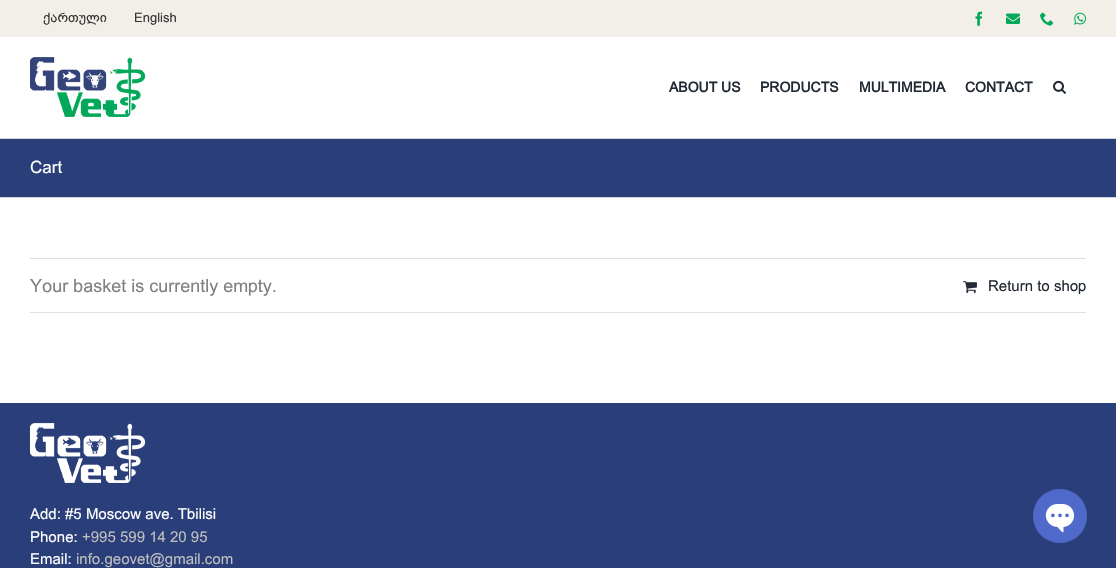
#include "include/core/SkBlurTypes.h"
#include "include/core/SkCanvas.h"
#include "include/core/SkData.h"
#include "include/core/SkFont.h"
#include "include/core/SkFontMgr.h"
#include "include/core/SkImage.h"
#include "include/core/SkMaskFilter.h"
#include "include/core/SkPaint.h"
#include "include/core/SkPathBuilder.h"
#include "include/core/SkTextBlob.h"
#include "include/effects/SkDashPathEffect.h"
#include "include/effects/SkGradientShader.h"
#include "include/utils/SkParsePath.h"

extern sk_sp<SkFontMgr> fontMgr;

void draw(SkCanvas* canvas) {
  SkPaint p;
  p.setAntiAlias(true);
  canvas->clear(SK_ColorWHITE);
  p.setColor(SkColorSetRGB(242, 239, 232));
  canvas->drawRect(SkRect::MakeLTRB(0, 0, 1116, 37), p);
  canvas->drawImageRect(SkImages::DeferredFromEncodedData(SkData::MakeFromFileName("images/1.png")), SkRect::MakeLTRB(975, 11, 983, 26), SkSamplingOptions());
  canvas->drawImageRect(SkImages::DeferredFromEncodedData(SkData::MakeFromFileName("images/2.png")), SkRect::MakeLTRB(1006, 13, 1020, 24), SkSamplingOptions());
  canvas->drawImageRect(SkImages::DeferredFromEncodedData(SkData::MakeFromFileName("images/3.png")), SkRect::MakeLTRB(1040, 12, 1054, 26), SkSamplingOptions());
  canvas->drawImageRect(SkImages::DeferredFromEncodedData(SkData::MakeFromFileName("images/4.png")), SkRect::MakeLTRB(1074, 12, 1086, 25), SkSamplingOptions());
  canvas->drawImageRect(SkImages::DeferredFromEncodedData(SkData::MakeFromFileName("images/5.png")), SkRect::MakeLTRB(30, 57, 146, 117), SkSamplingOptions());
  canvas->drawImageRect(SkImages::DeferredFromEncodedData(SkData::MakeFromFileName("images/6.png")), SkRect::MakeLTRB(1053, 80, 1066, 94), SkSamplingOptions());
  p.setColor(SkColorSetRGB(42, 62, 121));
  canvas->drawRect(SkRect::MakeLTRB(0, 139, 1116, 197), p);
  p.setColor(SkColorSetRGB(210, 211, 212));
  canvas->drawRect(SkRect::MakeLTRB(0, 138, 1116, 139), p);
  canvas->drawRect(SkRect::MakeLTRB(0, 197, 1116, 198), p);
  p.setColor(SkColorSetRGB(224, 222, 222));
  canvas->drawRect(SkRect::MakeLTRB(30, 258, 1086, 259), p);
  canvas->drawRect(SkRect::MakeLTRB(30, 312, 1086, 313), p);
  canvas->drawImageRect(SkImages::DeferredFromEncodedData(SkData::MakeFromFileName("images/7.png")), SkRect::MakeLTRB(963, 281, 977, 293), SkSamplingOptions());
  p.setColor(SkColorSetRGB(42, 62, 121));
  canvas->drawRect(SkRect::MakeLTRB(0, 403, 1116, 568), p);
  canvas->drawImageRect(SkImages::DeferredFromEncodedData(SkData::MakeFromFileName("images/8.png")), SkRect::MakeLTRB(30, 423, 145, 483), SkSamplingOptions());
  canvas->drawImageRect(SkImages::DeferredFromEncodedData(SkData::MakeFromFileName("images/9.png")), SkRect::MakeLTRB(1033, 489, 1087, 543), SkSamplingOptions());
  SkFont font1(fontMgr->matchFamilyStyle("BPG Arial", SkFontStyle::Normal()), 13);
  font1.setSubpixel(true);
  p.setColor(SkColorSetRGB(51, 51, 51));
  canvas->drawString("ქართული", 43, 22, font1, p);
  canvas->drawString("English", 134, 22, font1, p);
  SkFont font2(fontMgr->matchFamilyStyle("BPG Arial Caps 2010", SkFontStyle::Bold()), 14);
  font2.setSubpixel(true);
  p.setColor(SkColorSetRGB(33, 41, 52));
  canvas->drawString("ABOUT US", 669, 92, font2, p);
  canvas->drawString("PRODUCTS", 760, 92, font2, p);
  canvas->drawString("MULTIMEDIA", 859, 92, font2, p);
  canvas->drawString("CONTACT", 965, 92, font2, p);
  SkFont font3(fontMgr->matchFamilyStyle("BPG Arial", SkFontStyle::Normal()), 17);
  font3.setSubpixel(true);
  p.setColor(SK_ColorWHITE);
  canvas->drawString("Cart", 30, 173, font3, p);
  SkFont font4(fontMgr->matchFamilyStyle("BPG Arial", SkFontStyle::Normal()), 18);
  font4.setSubpixel(true);
  p.setColor(SkColorSetRGB(128, 128, 128));
  canvas->drawString("Your basket is currently empty.", 30, 292, font4, p);
  SkFont font5(fontMgr->matchFamilyStyle("BPG Arial", SkFontStyle::Normal()), 15);
  font5.setSubpixel(true);
  p.setColor(SkColorSetRGB(33, 41, 52));
  canvas->drawString("Return to shop", 988, 291, font5, p);
  p.setColor(SK_ColorWHITE);
  canvas->drawString("Add: #5 Moscow ave. Tbilisi", 30, 519, font5, p);
  canvas->drawString("Phone:", 30, 542, font5, p);
  p.setColor(SkColorSetRGB(191, 191, 191));
  canvas->drawString("+995 599 14 20 95", 82, 542, font5, p);
  p.setColor(SK_ColorWHITE);
  canvas->drawString("Email:", 30, 564, font5, p);
  p.setColor(SkColorSetRGB(191, 191, 191));
  canvas->drawString("info.geovet@gmail.com", 76, 564, font5, p);
}
